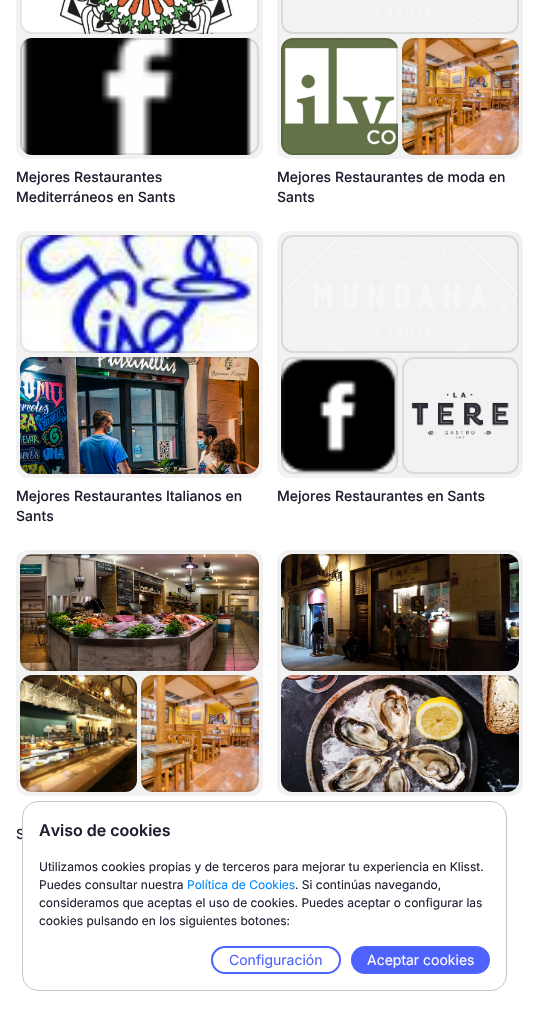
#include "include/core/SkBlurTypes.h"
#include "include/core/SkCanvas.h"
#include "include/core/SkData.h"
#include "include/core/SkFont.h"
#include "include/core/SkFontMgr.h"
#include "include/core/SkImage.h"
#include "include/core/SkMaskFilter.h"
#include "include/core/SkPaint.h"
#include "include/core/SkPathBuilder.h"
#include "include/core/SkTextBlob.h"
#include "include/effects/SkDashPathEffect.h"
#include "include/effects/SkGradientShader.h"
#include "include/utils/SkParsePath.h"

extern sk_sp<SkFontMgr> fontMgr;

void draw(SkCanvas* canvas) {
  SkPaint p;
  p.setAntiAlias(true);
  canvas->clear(SK_ColorWHITE);
  p.setColor(SkColorSetRGB(242, 242, 242));
  canvas->drawRoundRect(SkRect::MakeLTRB(16, -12, 263, 159), 12, 12, p);
  canvas->drawImageRect(SkImages::DeferredFromEncodedData(SkData::MakeFromFileName("images/1.png")), SkRect::MakeLTRB(20, 0, 259, 34), SkSamplingOptions());
  p.setStyle(SkPaint::kStroke_Style);
  p.setStrokeWidth(2);
  p.setColor(SkColorSetARGB(26, 0, 0, 0));
  canvas->drawRoundRect(SkRect::MakeLTRB(21, -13, 258, 33), 11, 11, p);
  canvas->drawImageRect(SkImages::DeferredFromEncodedData(SkData::MakeFromFileName("images/2.png")), SkRect::MakeLTRB(20, 38, 251, 155), SkSamplingOptions());
  canvas->drawRoundRect(SkRect::MakeLTRB(21, 39, 258, 154), 11, 11, p);
  p.setStyle(SkPaint::kFill_Style);
  p.setColor(SkColorSetRGB(242, 242, 242));
  canvas->drawRoundRect(SkRect::MakeLTRB(277, -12, 523, 159), 12, 12, p);
  canvas->drawImageRect(SkImages::DeferredFromEncodedData(SkData::MakeFromFileName("images/3.png")), SkRect::MakeLTRB(307, 0, 494, 34), SkSamplingOptions());
  p.setStyle(SkPaint::kStroke_Style);
  p.setColor(SkColorSetARGB(26, 0, 0, 0));
  canvas->drawRoundRect(SkRect::MakeLTRB(282, -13, 518, 33), 11, 11, p);
  canvas->drawImageRect(SkImages::DeferredFromEncodedData(SkData::MakeFromFileName("images/4.png")), SkRect::MakeLTRB(281, 38, 398, 155), SkSamplingOptions());
  canvas->drawRoundRect(SkRect::MakeLTRB(282, 39, 397, 154), 11, 11, p);
  canvas->drawImageRect(SkImages::DeferredFromEncodedData(SkData::MakeFromFileName("images/5.png")), SkRect::MakeLTRB(402, 38, 519, 155), SkSamplingOptions());
  canvas->drawRoundRect(SkRect::MakeLTRB(403, 39, 518, 154), 11, 11, p);
  p.setStyle(SkPaint::kFill_Style);
  p.setColor(SkColorSetRGB(242, 242, 242));
  canvas->drawRoundRect(SkRect::MakeLTRB(16, 231, 263, 478), 12, 12, p);
  canvas->drawImageRect(SkImages::DeferredFromEncodedData(SkData::MakeFromFileName("images/6.png")), SkRect::MakeLTRB(20, 235, 259, 353), SkSamplingOptions());
  p.setStyle(SkPaint::kStroke_Style);
  p.setColor(SkColorSetARGB(26, 0, 0, 0));
  canvas->drawRoundRect(SkRect::MakeLTRB(21, 236, 258, 352), 11, 11, p);
  canvas->drawImageRect(SkImages::DeferredFromEncodedData(SkData::MakeFromFileName("images/7.png")), SkRect::MakeLTRB(20, 357, 259, 474), SkSamplingOptions());
  canvas->drawRoundRect(SkRect::MakeLTRB(21, 358, 258, 473), 11, 11, p);
  p.setStyle(SkPaint::kFill_Style);
  p.setColor(SkColorSetRGB(242, 242, 242));
  canvas->drawRoundRect(SkRect::MakeLTRB(277, 231, 523, 478), 12, 12, p);
  canvas->drawImageRect(SkImages::DeferredFromEncodedData(SkData::MakeFromFileName("images/8.png")), SkRect::MakeLTRB(282, 235, 518, 353), SkSamplingOptions());
  p.setStyle(SkPaint::kStroke_Style);
  p.setColor(SkColorSetARGB(26, 0, 0, 0));
  canvas->drawRoundRect(SkRect::MakeLTRB(282, 236, 518, 352), 11, 11, p);
  canvas->drawImageRect(SkImages::DeferredFromEncodedData(SkData::MakeFromFileName("images/9.png")), SkRect::MakeLTRB(281, 358, 396, 473), SkSamplingOptions());
  canvas->drawRoundRect(SkRect::MakeLTRB(282, 358, 397, 473), 11, 11, p);
  canvas->drawImageRect(SkImages::DeferredFromEncodedData(SkData::MakeFromFileName("images/10.png")), SkRect::MakeLTRB(411, 392, 509, 439), SkSamplingOptions());
  p.setColor(SkColorSetRGB(218, 218, 218));
  canvas->drawRoundRect(SkRect::MakeLTRB(403, 358, 518, 473), 11, 11, p);
  p.setStyle(SkPaint::kFill_Style);
  p.setColor(SkColorSetRGB(242, 242, 242));
  canvas->drawRoundRect(SkRect::MakeLTRB(277, 550, 523, 796), 12, 12, p);
  canvas->drawImageRect(SkImages::DeferredFromEncodedData(SkData::MakeFromFileName("images/11.png")), SkRect::MakeLTRB(281, 554, 519, 671), SkSamplingOptions());
  p.setStyle(SkPaint::kStroke_Style);
  p.setColor(SkColorSetARGB(26, 0, 0, 0));
  canvas->drawRoundRect(SkRect::MakeLTRB(282, 555, 518, 670), 11, 11, p);
  canvas->drawImageRect(SkImages::DeferredFromEncodedData(SkData::MakeFromFileName("images/12.png")), SkRect::MakeLTRB(281, 675, 519, 792), SkSamplingOptions());
  canvas->drawRoundRect(SkRect::MakeLTRB(282, 676, 518, 791), 11, 11, p);
  p.setStyle(SkPaint::kFill_Style);
  p.setColor(SkColorSetRGB(242, 242, 242));
  canvas->drawRoundRect(SkRect::MakeLTRB(16, 550, 263, 796), 12, 12, p);
  canvas->drawImageRect(SkImages::DeferredFromEncodedData(SkData::MakeFromFileName("images/13.png")), SkRect::MakeLTRB(20, 554, 259, 671), SkSamplingOptions());
  p.setStyle(SkPaint::kStroke_Style);
  p.setColor(SkColorSetARGB(26, 0, 0, 0));
  canvas->drawRoundRect(SkRect::MakeLTRB(21, 555, 258, 670), 11, 11, p);
  canvas->drawImageRect(SkImages::DeferredFromEncodedData(SkData::MakeFromFileName("images/14.png")), SkRect::MakeLTRB(20, 675, 137, 792), SkSamplingOptions());
  canvas->drawRoundRect(SkRect::MakeLTRB(21, 676, 136, 791), 11, 11, p);
  canvas->drawImageRect(SkImages::DeferredFromEncodedData(SkData::MakeFromFileName("images/15.png")), SkRect::MakeLTRB(141, 675, 259, 792), SkSamplingOptions());
  canvas->drawRoundRect(SkRect::MakeLTRB(142, 676, 258, 791), 11, 11, p);
  SkFont font1(fontMgr->matchFamilyStyle("Inter", SkFontStyle(500, SkFontStyle::kNormal_Width, SkFontStyle::kUpright_Slant)), 14);
  font1.setSubpixel(true);
  p.setStyle(SkPaint::kFill_Style);
  p.setColor(SkColorSetRGB(31, 31, 49));
  canvas->drawString("Mejores Restaurantes", 16, 182, font1, p);
  canvas->drawString("Mediterráneos en Sants", 16, 202, font1, p);
  canvas->drawString("Mejores Restaurantes de moda en", 277, 182, font1, p);
  canvas->drawString("Sants", 277, 202, font1, p);
  canvas->drawString("Mejores Restaurantes Italianos en", 16, 501, font1, p);
  canvas->drawString("Sants", 16, 521, font1, p);
  canvas->drawString("Mejores Restaurantes en Sants", 277, 501, font1, p);
  canvas->drawString("S", 16, 839, font1, p);
  p.setColor(SK_ColorWHITE);
  canvas->drawRoundRect(SkRect::MakeLTRB(22.5f, 801.5f, 506.5f, 990.5f), 15.5f, 15.5f, p);
  p.setStyle(SkPaint::kStroke_Style);
  p.setStrokeWidth(1);
  p.setColor(SkColorSetRGB(196, 200, 202));
  canvas->drawRoundRect(SkRect::MakeLTRB(22.5f, 801.5f, 506.5f, 990.5f), 15.5f, 15.5f, p);
  SkFont font2(fontMgr->matchFamilyStyle("Inter", SkFontStyle(600, SkFontStyle::kNormal_Width, SkFontStyle::kUpright_Slant)), 16);
  font2.setSubpixel(true);
  p.setStyle(SkPaint::kFill_Style);
  p.setColor(SkColorSetRGB(31, 31, 49));
  canvas->drawString("Aviso de cookies", 39, 836, font2, p);
  SkFont font3(fontMgr->matchFamilyStyle("Inter", SkFontStyle::Normal()), 12);
  font3.setSubpixel(true);
  canvas->drawString("Utilizamos cookies propias y de terceros para mejorar tu experiencia en Klisst.", 39, 871, font3, p);
  canvas->drawString("Puedes consultar nuestra", 39, 889, font3, p);
  p.setColor(SkColorSetRGB(0, 136, 255));
  canvas->drawString("Política de Cookies", 187, 889, font3, p);
  p.setColor(SkColorSetRGB(31, 31, 49));
  canvas->drawString(". Si continúas navegando,", 295, 889, font3, p);
  canvas->drawString("consideramos que aceptas el uso de cookies. Puedes aceptar o configurar las", 39, 907, font3, p);
  canvas->drawString("cookies pulsando en los siguientes botones:", 39, 925, font3, p);
  p.setStyle(SkPaint::kStroke_Style);
  p.setStrokeWidth(2);
  p.setColor(SkColorSetRGB(78, 98, 253));
  canvas->drawRoundRect(SkRect::MakeLTRB(212, 947, 340, 973), 13, 13, p);
  SkFont font4(fontMgr->matchFamilyStyle("Inter", SkFontStyle::Normal()), 14);
  font4.setSubpixel(true);
  p.setStyle(SkPaint::kFill_Style);
  canvas->drawString("Configuración", 229, 965, font4, p);
  canvas->drawRoundRect(SkRect::MakeLTRB(351, 946, 490, 974), 14, 14, p);
  p.setColor(SK_ColorWHITE);
  canvas->drawString("Aceptar cookies", 367, 965, font4, p);
}
